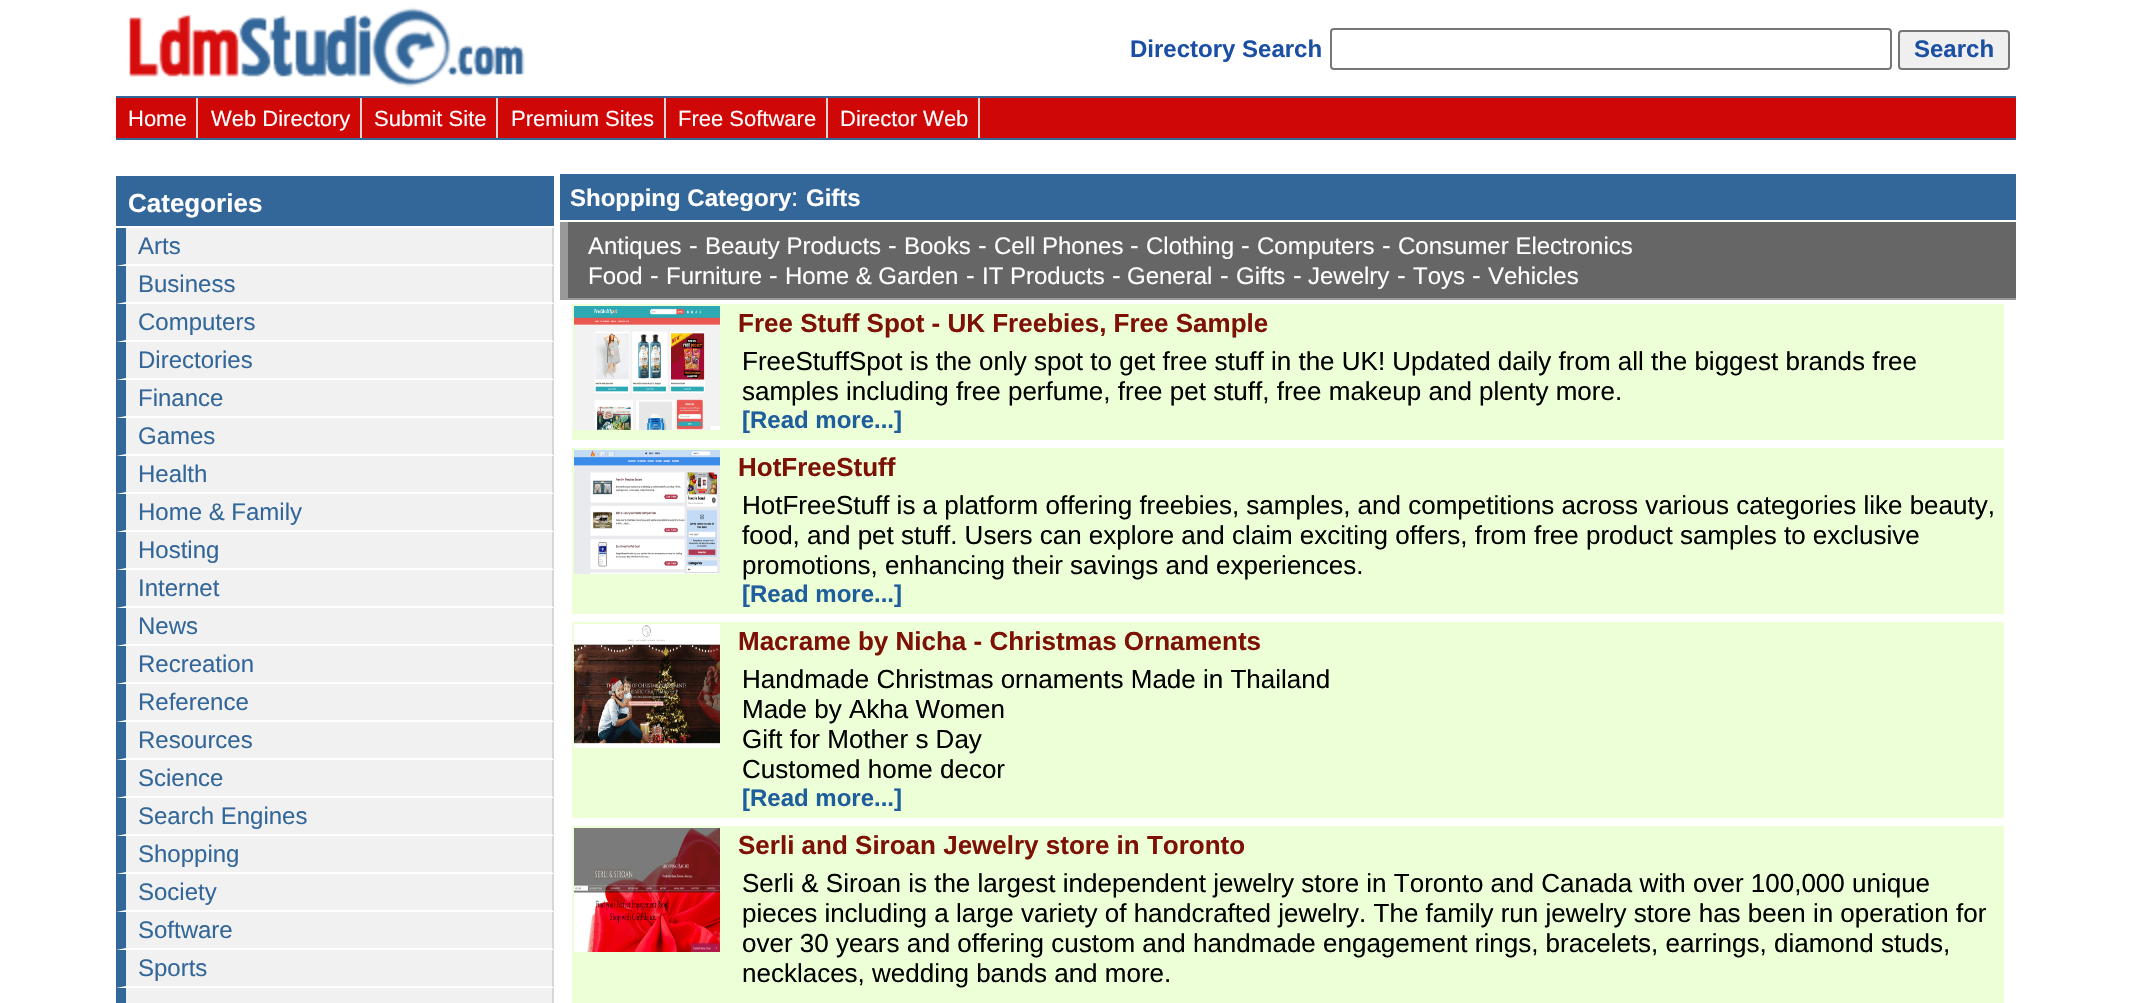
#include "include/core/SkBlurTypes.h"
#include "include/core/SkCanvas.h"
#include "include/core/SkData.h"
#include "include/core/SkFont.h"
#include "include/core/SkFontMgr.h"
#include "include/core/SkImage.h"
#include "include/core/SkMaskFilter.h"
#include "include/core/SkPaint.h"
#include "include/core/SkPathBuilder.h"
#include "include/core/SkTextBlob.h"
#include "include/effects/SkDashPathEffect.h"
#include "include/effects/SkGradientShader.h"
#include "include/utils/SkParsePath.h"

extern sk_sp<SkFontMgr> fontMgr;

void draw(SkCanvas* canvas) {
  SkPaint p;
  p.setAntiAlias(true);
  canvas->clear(SK_ColorWHITE);
  canvas->drawImageRect(SkImages::DeferredFromEncodedData(SkData::MakeFromFileName("images/1.png")), SkRect::MakeLTRB(129, 7, 525, 88), SkSamplingOptions());
  p.setStyle(SkPaint::kStroke_Style);
  p.setStrokeWidth(2);
  p.setColor(SkColorSetRGB(118, 118, 118));
  canvas->drawRoundRect(SkRect::MakeLTRB(1331, 29, 1891, 69), 3, 3, p);
  p.setStyle(SkPaint::kFill_Style);
  p.setColor(SkColorSetRGB(239, 239, 239));
  canvas->drawRoundRect(SkRect::MakeLTRB(1899, 31, 2009, 69), 3, 3, p);
  p.setStyle(SkPaint::kStroke_Style);
  p.setColor(SkColorSetRGB(118, 118, 118));
  canvas->drawRoundRect(SkRect::MakeLTRB(1899, 31, 2009, 69), 3, 3, p);
  p.setStyle(SkPaint::kFill_Style);
  p.setColor(SkColorSetRGB(208, 7, 7));
  canvas->drawRect(SkRect::MakeLTRB(116, 98, 2016, 138), p);
  p.setColor(SkColorSetRGB(51, 102, 153));
  canvas->drawRect(SkRect::MakeLTRB(116, 96, 2016, 98), p);
  canvas->drawRect(SkRect::MakeLTRB(116, 138, 2016, 140), p);
  p.setColor(SkColorSetRGB(218, 214, 214));
  canvas->drawRect(SkRect::MakeLTRB(196, 98, 198, 138), p);
  canvas->drawRect(SkRect::MakeLTRB(360, 98, 362, 138), p);
  canvas->drawRect(SkRect::MakeLTRB(496, 98, 498, 138), p);
  canvas->drawRect(SkRect::MakeLTRB(664, 98, 666, 138), p);
  canvas->drawRect(SkRect::MakeLTRB(826, 98, 828, 138), p);
  canvas->drawRect(SkRect::MakeLTRB(978, 98, 980, 138), p);
  p.setColor(SkColorSetRGB(241, 241, 241));
  canvas->drawRect(SkRect::MakeLTRB(116, 228, 552, 1003), p);
  p.setColor(SkColorSetRGB(51, 102, 153));
  canvas->drawRect(SkRect::MakeLTRB(116, 176, 554, 226), p);
  p.setColor(SkColorSetRGB(215, 215, 215));
  canvas->drawRect(SkRect::MakeLTRB(552, 228, 554, 1003), p);
  p.setColor(SK_ColorWHITE);
  canvas->drawPath(SkPathBuilder().moveTo(554, 266).lineTo(116, 266).lineTo(126, 264).lineTo(552, 264).close().detach(), p);
  p.setColor(SkColorSetRGB(51, 102, 153));
  canvas->drawPath(SkPathBuilder().moveTo(116, 266).lineTo(116, 228).lineTo(126, 228).lineTo(126, 264).close().detach(), p);
  p.setColor(SK_ColorWHITE);
  canvas->drawPath(SkPathBuilder().moveTo(554, 304).lineTo(116, 304).lineTo(126, 302).lineTo(552, 302).close().detach(), p);
  p.setColor(SkColorSetRGB(51, 102, 153));
  canvas->drawPath(SkPathBuilder().moveTo(116, 304).lineTo(116, 266).lineTo(126, 266).lineTo(126, 302).close().detach(), p);
  p.setColor(SK_ColorWHITE);
  canvas->drawPath(SkPathBuilder().moveTo(554, 342).lineTo(116, 342).lineTo(126, 340).lineTo(552, 340).close().detach(), p);
  p.setColor(SkColorSetRGB(51, 102, 153));
  canvas->drawPath(SkPathBuilder().moveTo(116, 342).lineTo(116, 304).lineTo(126, 304).lineTo(126, 340).close().detach(), p);
  p.setColor(SK_ColorWHITE);
  canvas->drawPath(SkPathBuilder().moveTo(554, 380).lineTo(116, 380).lineTo(126, 378).lineTo(552, 378).close().detach(), p);
  p.setColor(SkColorSetRGB(51, 102, 153));
  canvas->drawPath(SkPathBuilder().moveTo(116, 380).lineTo(116, 342).lineTo(126, 342).lineTo(126, 378).close().detach(), p);
  p.setColor(SK_ColorWHITE);
  canvas->drawPath(SkPathBuilder().moveTo(554, 418).lineTo(116, 418).lineTo(126, 416).lineTo(552, 416).close().detach(), p);
  p.setColor(SkColorSetRGB(51, 102, 153));
  canvas->drawPath(SkPathBuilder().moveTo(116, 418).lineTo(116, 380).lineTo(126, 380).lineTo(126, 416).close().detach(), p);
  p.setColor(SK_ColorWHITE);
  canvas->drawPath(SkPathBuilder().moveTo(554, 456).lineTo(116, 456).lineTo(126, 454).lineTo(552, 454).close().detach(), p);
  p.setColor(SkColorSetRGB(51, 102, 153));
  canvas->drawPath(SkPathBuilder().moveTo(116, 456).lineTo(116, 418).lineTo(126, 418).lineTo(126, 454).close().detach(), p);
  p.setColor(SK_ColorWHITE);
  canvas->drawPath(SkPathBuilder().moveTo(554, 494).lineTo(116, 494).lineTo(126, 492).lineTo(552, 492).close().detach(), p);
  p.setColor(SkColorSetRGB(51, 102, 153));
  canvas->drawPath(SkPathBuilder().moveTo(116, 494).lineTo(116, 456).lineTo(126, 456).lineTo(126, 492).close().detach(), p);
  p.setColor(SK_ColorWHITE);
  canvas->drawPath(SkPathBuilder().moveTo(554, 532).lineTo(116, 532).lineTo(126, 530).lineTo(552, 530).close().detach(), p);
  p.setColor(SkColorSetRGB(51, 102, 153));
  canvas->drawPath(SkPathBuilder().moveTo(116, 532).lineTo(116, 494).lineTo(126, 494).lineTo(126, 530).close().detach(), p);
  p.setColor(SK_ColorWHITE);
  canvas->drawPath(SkPathBuilder().moveTo(554, 570).lineTo(116, 570).lineTo(126, 568).lineTo(552, 568).close().detach(), p);
  p.setColor(SkColorSetRGB(51, 102, 153));
  canvas->drawPath(SkPathBuilder().moveTo(116, 570).lineTo(116, 532).lineTo(126, 532).lineTo(126, 568).close().detach(), p);
  p.setColor(SK_ColorWHITE);
  canvas->drawPath(SkPathBuilder().moveTo(554, 608).lineTo(116, 608).lineTo(126, 606).lineTo(552, 606).close().detach(), p);
  p.setColor(SkColorSetRGB(51, 102, 153));
  canvas->drawPath(SkPathBuilder().moveTo(116, 608).lineTo(116, 570).lineTo(126, 570).lineTo(126, 606).close().detach(), p);
  p.setColor(SK_ColorWHITE);
  canvas->drawPath(SkPathBuilder().moveTo(554, 646).lineTo(116, 646).lineTo(126, 644).lineTo(552, 644).close().detach(), p);
  p.setColor(SkColorSetRGB(51, 102, 153));
  canvas->drawPath(SkPathBuilder().moveTo(116, 646).lineTo(116, 608).lineTo(126, 608).lineTo(126, 644).close().detach(), p);
  p.setColor(SK_ColorWHITE);
  canvas->drawPath(SkPathBuilder().moveTo(554, 684).lineTo(116, 684).lineTo(126, 682).lineTo(552, 682).close().detach(), p);
  p.setColor(SkColorSetRGB(51, 102, 153));
  canvas->drawPath(SkPathBuilder().moveTo(116, 684).lineTo(116, 646).lineTo(126, 646).lineTo(126, 682).close().detach(), p);
  p.setColor(SK_ColorWHITE);
  canvas->drawPath(SkPathBuilder().moveTo(554, 722).lineTo(116, 722).lineTo(126, 720).lineTo(552, 720).close().detach(), p);
  p.setColor(SkColorSetRGB(51, 102, 153));
  canvas->drawPath(SkPathBuilder().moveTo(116, 722).lineTo(116, 684).lineTo(126, 684).lineTo(126, 720).close().detach(), p);
  p.setColor(SK_ColorWHITE);
  canvas->drawPath(SkPathBuilder().moveTo(554, 760).lineTo(116, 760).lineTo(126, 758).lineTo(552, 758).close().detach(), p);
  p.setColor(SkColorSetRGB(51, 102, 153));
  canvas->drawPath(SkPathBuilder().moveTo(116, 760).lineTo(116, 722).lineTo(126, 722).lineTo(126, 758).close().detach(), p);
  p.setColor(SK_ColorWHITE);
  canvas->drawPath(SkPathBuilder().moveTo(554, 798).lineTo(116, 798).lineTo(126, 796).lineTo(552, 796).close().detach(), p);
  p.setColor(SkColorSetRGB(51, 102, 153));
  canvas->drawPath(SkPathBuilder().moveTo(116, 798).lineTo(116, 760).lineTo(126, 760).lineTo(126, 796).close().detach(), p);
  p.setColor(SK_ColorWHITE);
  canvas->drawPath(SkPathBuilder().moveTo(554, 836).lineTo(116, 836).lineTo(126, 834).lineTo(552, 834).close().detach(), p);
  p.setColor(SkColorSetRGB(51, 102, 153));
  canvas->drawPath(SkPathBuilder().moveTo(116, 836).lineTo(116, 798).lineTo(126, 798).lineTo(126, 834).close().detach(), p);
  p.setColor(SK_ColorWHITE);
  canvas->drawPath(SkPathBuilder().moveTo(554, 874).lineTo(116, 874).lineTo(126, 872).lineTo(552, 872).close().detach(), p);
  p.setColor(SkColorSetRGB(51, 102, 153));
  canvas->drawPath(SkPathBuilder().moveTo(116, 874).lineTo(116, 836).lineTo(126, 836).lineTo(126, 872).close().detach(), p);
  p.setColor(SK_ColorWHITE);
  canvas->drawPath(SkPathBuilder().moveTo(554, 912).lineTo(116, 912).lineTo(126, 910).lineTo(552, 910).close().detach(), p);
  p.setColor(SkColorSetRGB(51, 102, 153));
  canvas->drawPath(SkPathBuilder().moveTo(116, 912).lineTo(116, 874).lineTo(126, 874).lineTo(126, 910).close().detach(), p);
  p.setColor(SK_ColorWHITE);
  canvas->drawPath(SkPathBuilder().moveTo(554, 950).lineTo(116, 950).lineTo(126, 948).lineTo(552, 948).close().detach(), p);
  p.setColor(SkColorSetRGB(51, 102, 153));
  canvas->drawPath(SkPathBuilder().moveTo(116, 950).lineTo(116, 912).lineTo(126, 912).lineTo(126, 948).close().detach(), p);
  p.setColor(SK_ColorWHITE);
  canvas->drawPath(SkPathBuilder().moveTo(554, 988).lineTo(116, 988).lineTo(126, 986).lineTo(552, 986).close().detach(), p);
  p.setColor(SkColorSetRGB(51, 102, 153));
  canvas->drawPath(SkPathBuilder().moveTo(116, 988).lineTo(116, 950).lineTo(126, 950).lineTo(126, 986).close().moveTo(116, 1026).lineTo(116, 988).lineTo(126, 988).lineTo(126, 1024).close().detach(), p);
  canvas->drawRect(SkRect::MakeLTRB(560, 174, 2016, 220), p);
  p.setColor(SkColorSetRGB(102, 102, 102));
  canvas->drawRect(SkRect::MakeLTRB(568, 222, 2016, 298), p);
  p.setColor(SkColorSetRGB(153, 153, 153));
  canvas->drawRect(SkRect::MakeLTRB(560, 298, 2016, 300), p);
  canvas->drawRect(SkRect::MakeLTRB(560, 222, 568, 300), p);
  p.setColor(SkColorSetRGB(236, 255, 215));
  canvas->drawRect(SkRect::MakeLTRB(572, 304, 2004, 440), p);
  canvas->drawImageRect(SkImages::DeferredFromEncodedData(SkData::MakeFromFileName("images/2.png")), SkRect::MakeLTRB(574, 306, 720, 430), SkSamplingOptions());
  canvas->drawRect(SkRect::MakeLTRB(572, 448, 2004, 614), p);
  canvas->drawImageRect(SkImages::DeferredFromEncodedData(SkData::MakeFromFileName("images/3.png")), SkRect::MakeLTRB(574, 450, 720, 574), SkSamplingOptions());
  canvas->drawRect(SkRect::MakeLTRB(572, 622, 2004, 818), p);
  canvas->drawImageRect(SkImages::DeferredFromEncodedData(SkData::MakeFromFileName("images/4.png")), SkRect::MakeLTRB(574, 624, 720, 748), SkSamplingOptions());
  canvas->drawRect(SkRect::MakeLTRB(572, 826, 2004, 1003), p);
  canvas->drawImageRect(SkImages::DeferredFromEncodedData(SkData::MakeFromFileName("images/5.png")), SkRect::MakeLTRB(574, 828, 720, 952), SkSamplingOptions());
  SkFont font1(fontMgr->matchFamilyStyle("Liberation Sans", SkFontStyle::Bold()), 24);
  font1.setSubpixel(true);
  p.setColor(SkColorSetRGB(26, 79, 164));
  canvas->drawString("Directory Search", 1130, 57, font1, p);
  canvas->drawString("Search", 1914, 57, font1, p);
  SkFont font2(fontMgr->matchFamilyStyle("Liberation Sans", SkFontStyle::Normal()), 22);
  font2.setSubpixel(true);
  p.setColor(SK_ColorWHITE);
  canvas->drawString("Home", 128, 126, font2, p);
  canvas->drawString("Web Directory", 211, 126, font2, p);
  canvas->drawString("Submit Site", 374, 126, font2, p);
  canvas->drawString("Premium Sites", 511, 126, font2, p);
  canvas->drawString("Free Software", 678, 126, font2, p);
  canvas->drawString("Director Web", 840, 126, font2, p);
  SkFont font3(fontMgr->matchFamilyStyle("Liberation Sans", SkFontStyle::Bold()), 26);
  font3.setSubpixel(true);
  canvas->drawString("Categories", 128, 212, font3, p);
  SkFont font4(fontMgr->matchFamilyStyle("Liberation Sans", SkFontStyle::Normal()), 24);
  font4.setSubpixel(true);
  p.setColor(SkColorSetRGB(51, 102, 153));
  canvas->drawString("Arts", 138, 254, font4, p);
  canvas->drawString("Business", 138, 292, font4, p);
  canvas->drawString("Computers", 138, 330, font4, p);
  canvas->drawString("Directories", 138, 368, font4, p);
  canvas->drawString("Finance", 138, 406, font4, p);
  canvas->drawString("Games", 138, 444, font4, p);
  canvas->drawString("Health", 138, 482, font4, p);
  canvas->drawString("Home & Family", 138, 520, font4, p);
  canvas->drawString("Hosting", 138, 558, font4, p);
  canvas->drawString("Internet", 138, 596, font4, p);
  canvas->drawString("News", 138, 634, font4, p);
  canvas->drawString("Recreation", 138, 672, font4, p);
  canvas->drawString("Reference", 138, 710, font4, p);
  canvas->drawString("Resources", 138, 748, font4, p);
  canvas->drawString("Science", 138, 786, font4, p);
  canvas->drawString("Search Engines", 138, 824, font4, p);
  canvas->drawString("Shopping", 138, 862, font4, p);
  canvas->drawString("Society", 138, 900, font4, p);
  canvas->drawString("Software", 138, 938, font4, p);
  canvas->drawString("Sports", 138, 976, font4, p);
  p.setColor(SK_ColorWHITE);
  canvas->drawString("Shopping Category", 570, 206, font1, p);
  SkFont font5(fontMgr->matchFamilyStyle("Liberation Sans", SkFontStyle::Normal()), 26);
  font5.setSubpixel(true);
  canvas->drawString(":", 791, 206, font5, p);
  canvas->drawString("Gifts", 806, 206, font1, p);
  canvas->drawString("Antiques", 588, 254, font4, p);
  canvas->drawString("-", 689, 254, font5, p);
  canvas->drawString("Beauty Products", 705, 254, font4, p);
  canvas->drawString("-", 888, 254, font5, p);
  canvas->drawString("Books", 904, 254, font4, p);
  canvas->drawString("-", 978, 254, font5, p);
  canvas->drawString("Cell Phones", 994, 254, font4, p);
  canvas->drawString("-", 1130, 254, font5, p);
  canvas->drawString("Clothing", 1146, 254, font4, p);
  canvas->drawString("-", 1241, 254, font5, p);
  canvas->drawString("Computers", 1257, 254, font4, p);
  canvas->drawString("-", 1382, 254, font5, p);
  canvas->drawString("Consumer Electronics", 1398, 254, font4, p);
  canvas->drawString("Food", 588, 284, font4, p);
  canvas->drawString("-", 650, 284, font5, p);
  canvas->drawString("Furniture", 666, 284, font4, p);
  canvas->drawString("-", 769, 284, font5, p);
  canvas->drawString("Home & Garden", 785, 284, font4, p);
  canvas->drawString("-", 966, 284, font5, p);
  canvas->drawString("IT Products", 982, 284, font4, p);
  canvas->drawString("-", 1112, 284, font5, p);
  canvas->drawString("General", 1127, 284, font4, p);
  canvas->drawString("-", 1220, 284, font5, p);
  canvas->drawString("Gifts", 1236, 284, font4, p);
  canvas->drawString("-", 1293, 284, font5, p);
  canvas->drawString("Jewelry", 1308, 284, font4, p);
  canvas->drawString("-", 1397, 284, font5, p);
  canvas->drawString("Toys", 1413, 284, font4, p);
  canvas->drawString("-", 1472, 284, font5, p);
  canvas->drawString("Vehicles", 1488, 284, font4, p);
  p.setColor(SkColorSetRGB(126, 17, 5));
  canvas->drawString("Free Stuff Spot - UK Freebies, Free Sample", 738, 332, font3, p);
  p.setColor(SK_ColorBLACK);
  canvas->drawString("FreeStuffSpot is the only spot to get free stuff in the UK! Updated daily from all the biggest brands free", 742, 370, font5, p);
  canvas->drawString("samples including free perfume, free pet stuff, free makeup and plenty more.", 742, 400, font5, p);
  p.setColor(SkColorSetRGB(31, 94, 156));
  canvas->drawString("[Read more...]", 742, 428, font1, p);
  p.setColor(SkColorSetRGB(126, 17, 5));
  canvas->drawString("HotFreeStuff", 738, 476, font3, p);
  p.setColor(SK_ColorBLACK);
  canvas->drawString("HotFreeStuff is a platform offering freebies, samples, and competitions across various categories like beauty,", 742, 514, font5, p);
  canvas->drawString("food, and pet stuff. Users can explore and claim exciting offers, from free product samples to exclusive", 742, 544, font5, p);
  canvas->drawString("promotions, enhancing their savings and experiences.", 742, 574, font5, p);
  p.setColor(SkColorSetRGB(31, 94, 156));
  canvas->drawString("[Read more...]", 742, 602, font1, p);
  p.setColor(SkColorSetRGB(126, 17, 5));
  canvas->drawString("Macrame by Nicha - Christmas Ornaments", 738, 650, font3, p);
  p.setColor(SK_ColorBLACK);
  canvas->drawString("Handmade Christmas ornaments Made in Thailand", 742, 688, font5, p);
  canvas->drawString("Made by Akha Women", 742, 718, font5, p);
  canvas->drawString("Gift for Mother s Day", 742, 748, font5, p);
  canvas->drawString("Customed home decor", 742, 778, font5, p);
  p.setColor(SkColorSetRGB(31, 94, 156));
  canvas->drawString("[Read more...]", 742, 806, font1, p);
  p.setColor(SkColorSetRGB(126, 17, 5));
  canvas->drawString("Serli and Siroan Jewelry store in Toronto", 738, 854, font3, p);
  p.setColor(SK_ColorBLACK);
  canvas->drawString("Serli & Siroan is the largest independent jewelry store in Toronto and Canada with over 100,000 unique", 742, 892, font5, p);
  canvas->drawString("pieces including a large variety of handcrafted jewelry. The family run jewelry store has been in operation for", 742, 922, font5, p);
  canvas->drawString("over 30 years and offering custom and handmade engagement rings, bracelets, earrings, diamond studs,", 742, 952, font5, p);
  canvas->drawString("necklaces, wedding bands and more.", 742, 982, font5, p);
}
